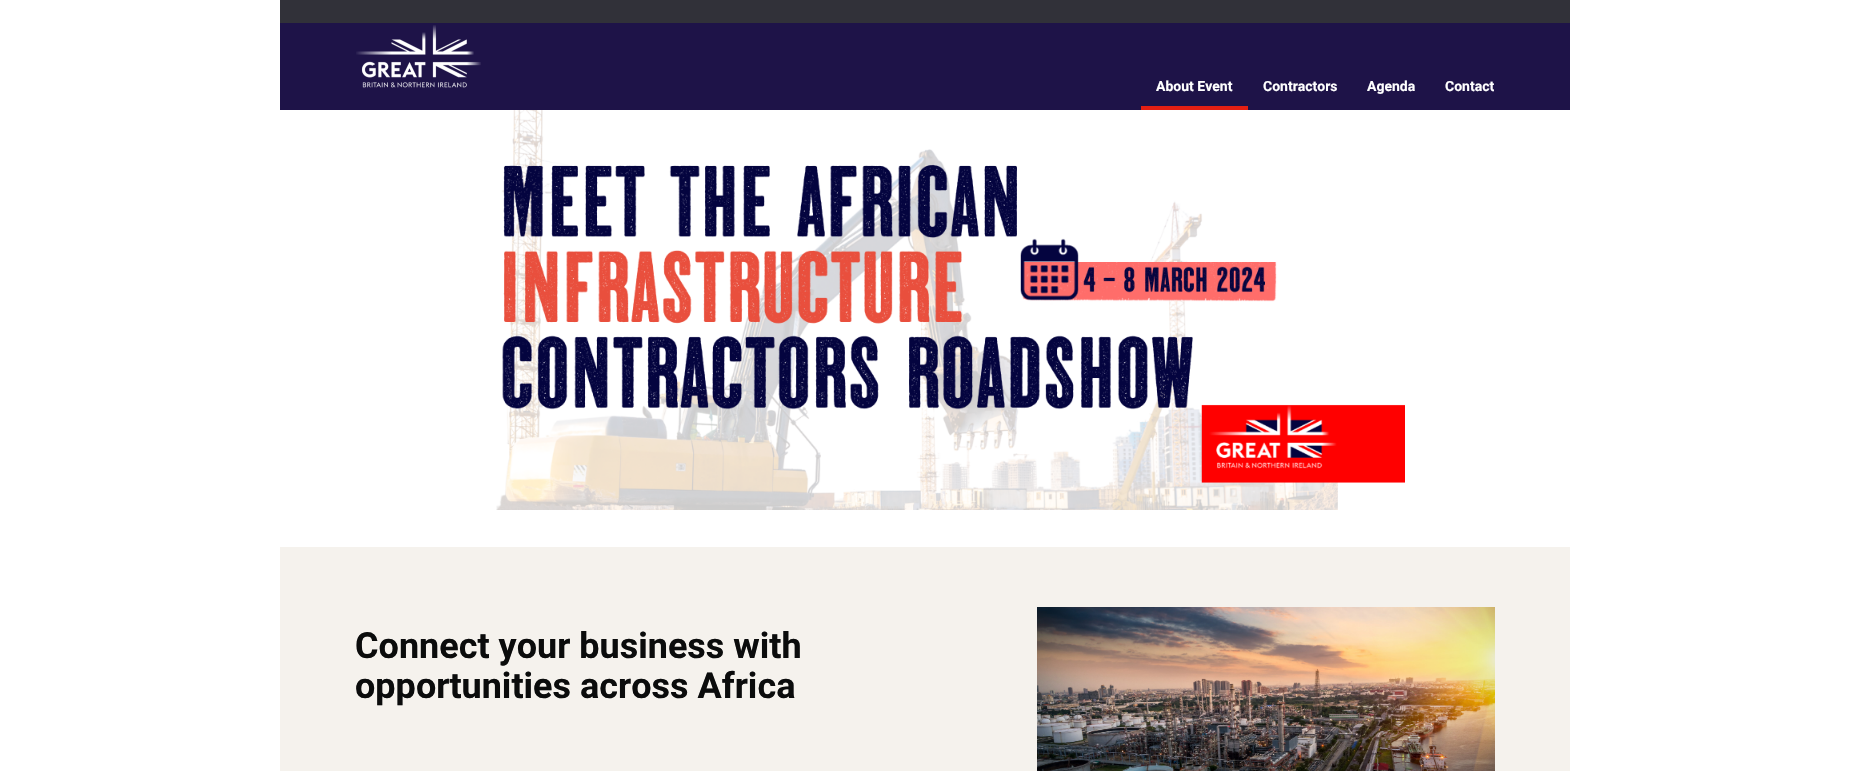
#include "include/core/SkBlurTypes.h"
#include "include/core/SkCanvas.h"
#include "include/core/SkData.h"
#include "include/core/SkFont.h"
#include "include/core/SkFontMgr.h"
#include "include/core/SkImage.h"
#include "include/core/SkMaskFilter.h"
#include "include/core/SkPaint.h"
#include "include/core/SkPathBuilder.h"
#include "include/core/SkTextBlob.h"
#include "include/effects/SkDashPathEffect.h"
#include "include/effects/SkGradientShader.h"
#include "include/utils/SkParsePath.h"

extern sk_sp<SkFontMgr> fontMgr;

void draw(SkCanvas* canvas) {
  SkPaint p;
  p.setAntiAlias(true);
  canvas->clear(SK_ColorWHITE);
  p.setColor(SkColorSetRGB(49, 49, 57));
  canvas->drawRect(SkRect::MakeLTRB(280, 0, 1570, 23), p);
  p.setColor(SkColorSetRGB(30, 19, 72));
  canvas->drawRect(SkRect::MakeLTRB(280, 23, 1570, 110), p);
  canvas->drawImageRect(SkImages::DeferredFromEncodedData(SkData::MakeFromFileName("images/1.png")), SkRect::MakeLTRB(356, 25, 481, 88), SkSamplingOptions());
  p.setColor(SkColorSetRGB(228, 31, 19));
  canvas->drawRect(SkRect::MakeLTRB(1141, 106, 1248, 110), p);
  canvas->drawImageRect(SkImages::DeferredFromEncodedData(SkData::MakeFromFileName("images/2.png")), SkRect::MakeLTRB(496, 110, 1405, 510), SkSamplingOptions());
  p.setColor(SkColorSetRGB(245, 242, 237));
  canvas->drawRect(SkRect::MakeLTRB(280, 547, 1570, 771), p);
  canvas->drawImageRect(SkImages::DeferredFromEncodedData(SkData::MakeFromFileName("images/3.png")), SkRect::MakeLTRB(1037, 607, 1495, 771), SkSamplingOptions());
  SkFont font1(fontMgr->matchFamilyStyle("Roboto", SkFontStyle::Bold()), 14);
  font1.setSubpixel(true);
  p.setColor(SK_ColorWHITE);
  canvas->drawString("About Event", 1156, 91, font1, p);
  canvas->drawString("Contractors", 1263, 91, font1, p);
  canvas->drawString("Agenda", 1367, 91, font1, p);
  canvas->drawString("Contact", 1445, 91, font1, p);
  SkFont font2(fontMgr->matchFamilyStyle("Roboto", SkFontStyle::Bold()), 36);
  font2.setSubpixel(true);
  p.setColor(SkColorSetRGB(11, 12, 12));
  canvas->drawString("Connect your business with", 355, 658, font2, p);
  canvas->drawString("opportunities across Africa", 355, 698, font2, p);
}
